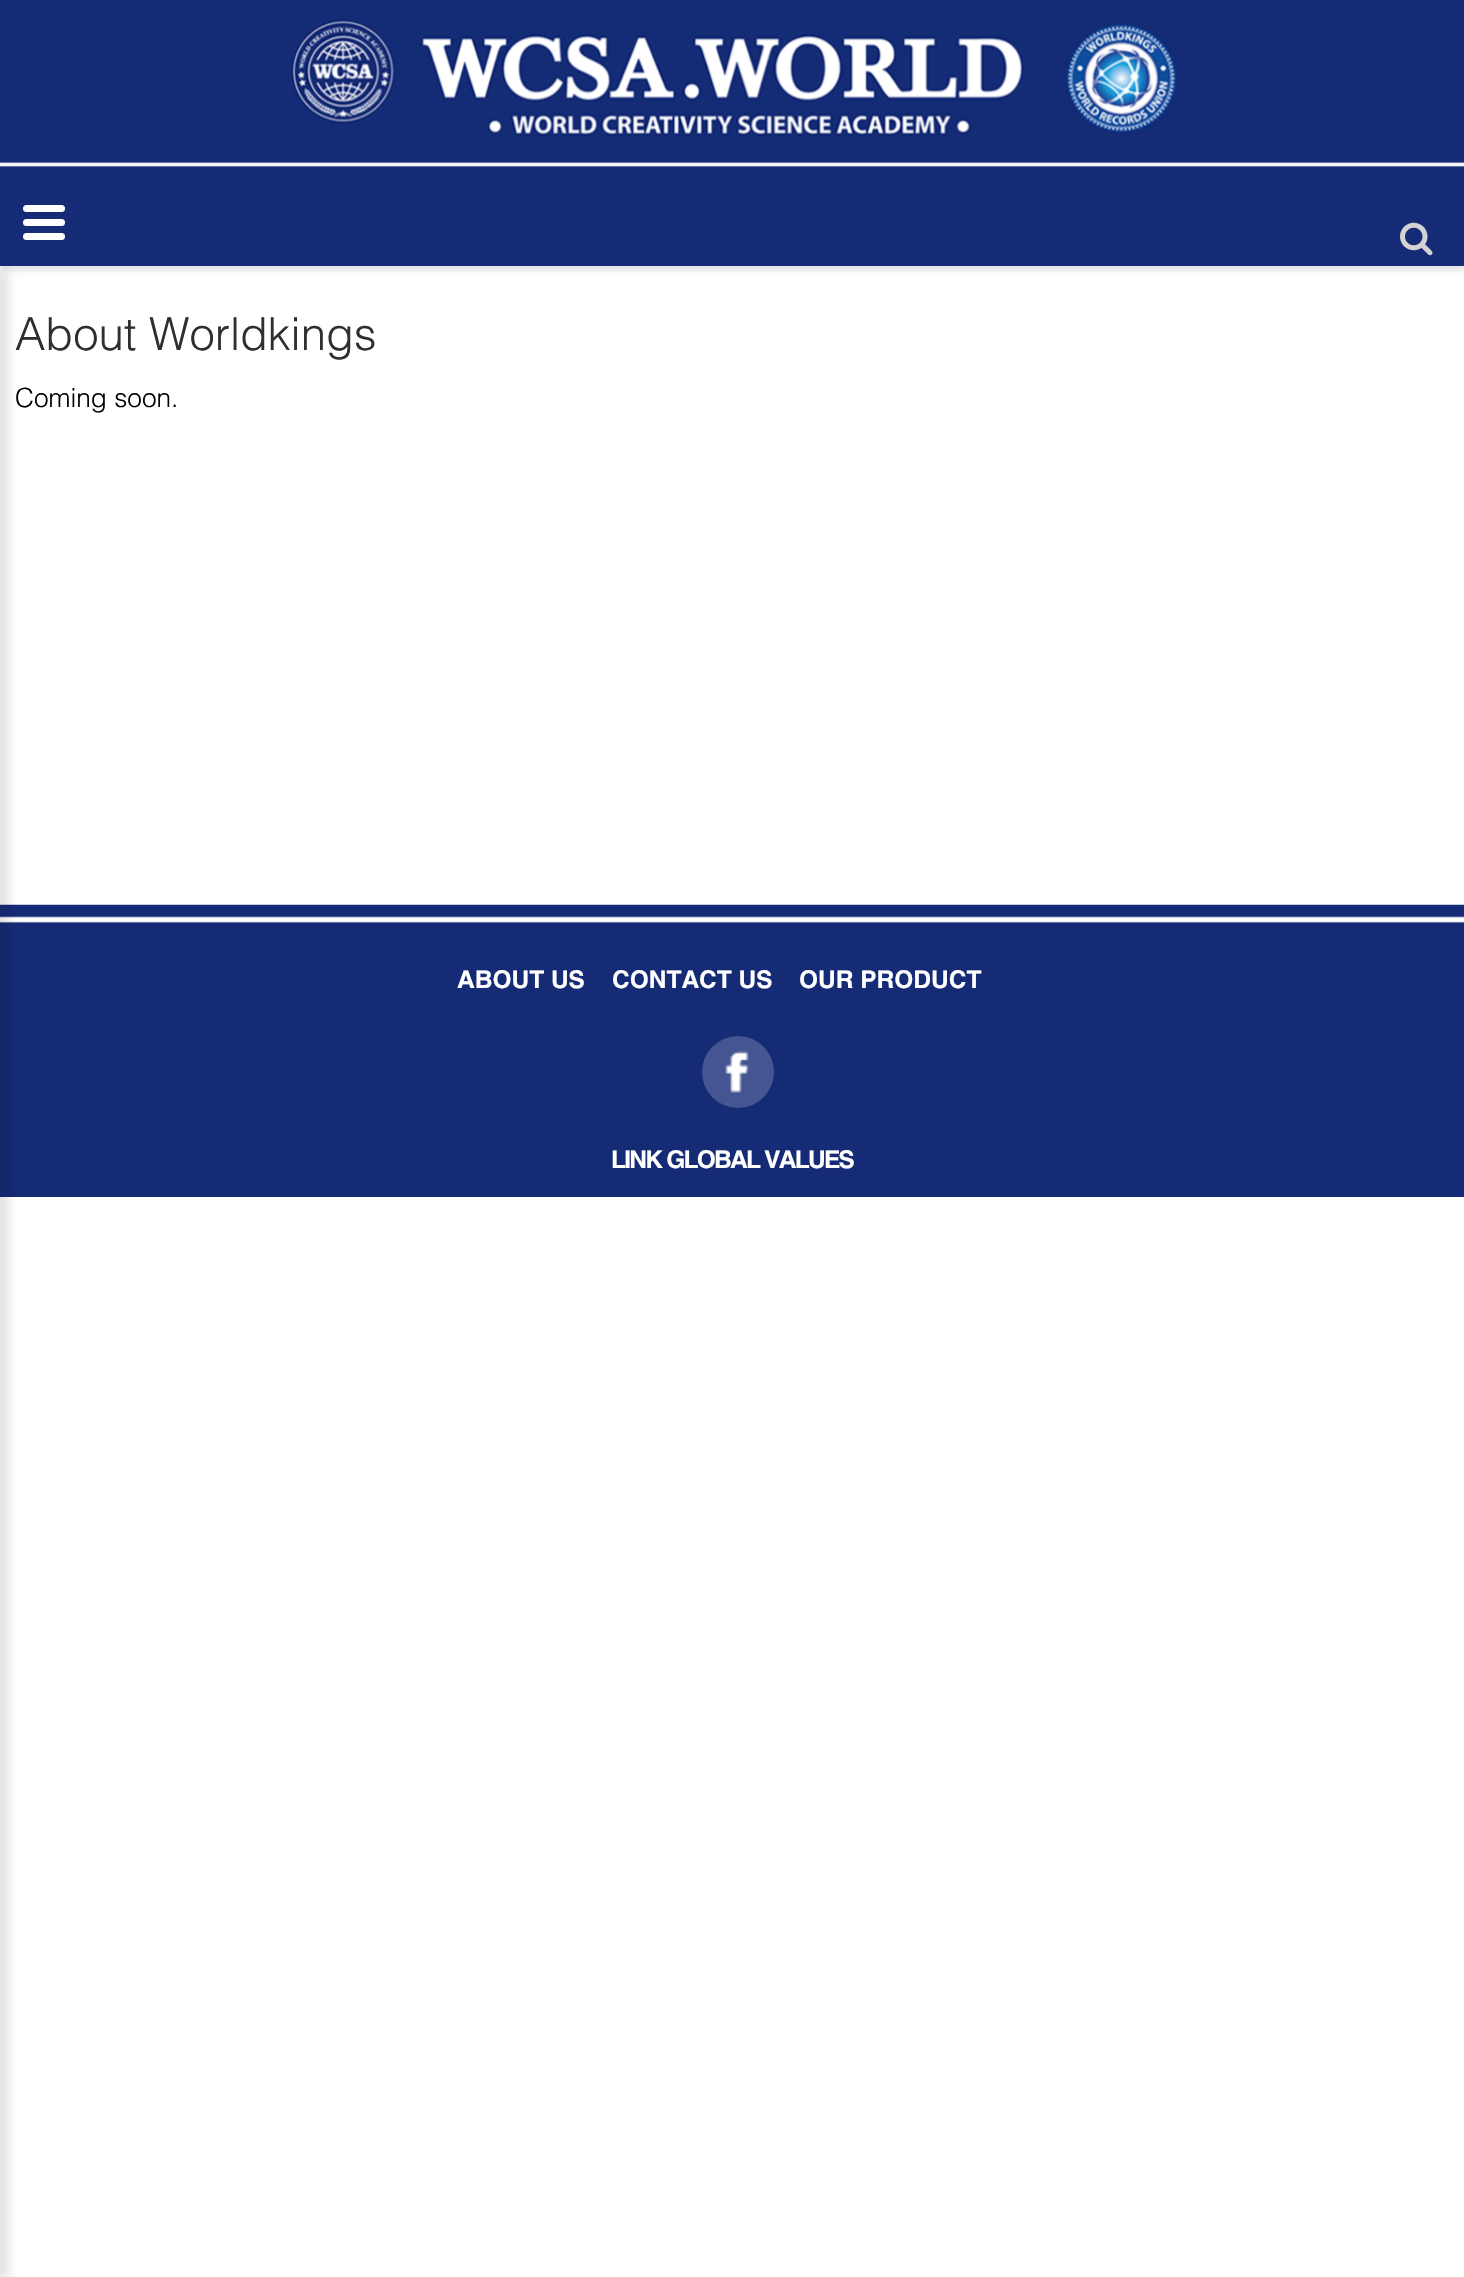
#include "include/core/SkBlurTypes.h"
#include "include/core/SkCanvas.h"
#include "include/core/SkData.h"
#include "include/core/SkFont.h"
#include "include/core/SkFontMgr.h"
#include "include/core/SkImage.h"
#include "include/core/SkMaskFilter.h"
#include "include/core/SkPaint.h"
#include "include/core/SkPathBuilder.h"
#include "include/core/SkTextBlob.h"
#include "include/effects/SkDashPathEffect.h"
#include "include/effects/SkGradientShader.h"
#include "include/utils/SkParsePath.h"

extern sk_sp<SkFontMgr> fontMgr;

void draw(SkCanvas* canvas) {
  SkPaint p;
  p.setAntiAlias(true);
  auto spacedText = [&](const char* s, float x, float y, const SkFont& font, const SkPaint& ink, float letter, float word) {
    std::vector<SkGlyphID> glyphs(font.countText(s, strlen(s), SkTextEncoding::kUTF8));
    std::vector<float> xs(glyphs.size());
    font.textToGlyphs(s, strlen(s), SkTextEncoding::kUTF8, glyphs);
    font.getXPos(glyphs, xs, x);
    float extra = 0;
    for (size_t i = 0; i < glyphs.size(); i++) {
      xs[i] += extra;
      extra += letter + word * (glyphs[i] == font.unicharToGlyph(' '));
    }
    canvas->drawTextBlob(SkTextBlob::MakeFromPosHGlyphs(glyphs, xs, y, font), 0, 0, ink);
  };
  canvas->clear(SK_ColorWHITE);
  p.setColor(SkColorSetARGB(26, 0, 0, 0));
  p.setMaskFilter(SkMaskFilter::MakeBlur(kNormal_SkBlurStyle, 2.5f));
  canvas->drawRect(SkRect::MakeLTRB(0, 5, 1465, 271), p);
  p.setMaskFilter(nullptr);
  p.setColor(SkColorSetRGB(21, 43, 118));
  canvas->drawRect(SkRect::MakeLTRB(0, 923, 1464, 1197), p);
  canvas->drawImageRect(SkImages::DeferredFromEncodedData(SkData::MakeFromFileName("images/5.png")), SkRect::MakeLTRB(0, 904, 1464, 923), SkSamplingOptions());
  p.setColor(SkColorSetARGB(26, 0, 0, 0));
  p.setMaskFilter(SkMaskFilter::MakeBlur(kNormal_SkBlurStyle, 4.5f));
  canvas->drawRect(SkRect::MakeLTRB(-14, 271, 9, 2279), p);
  p.setMaskFilter(nullptr);
  p.setColor(SkColorSetRGB(21, 43, 118));
  canvas->drawRect(SkRect::MakeLTRB(0, 0, 1464, 266), p);
  canvas->drawImageRect(SkImages::DeferredFromEncodedData(SkData::MakeFromFileName("images/1.png")), SkRect::MakeLTRB(0, 162, 1464, 167), SkSamplingOptions());
  canvas->drawImageRect(SkImages::DeferredFromEncodedData(SkData::MakeFromFileName("images/2.png")), SkRect::MakeLTRB(291, 19, 1024, 136), SkSamplingOptions());
  canvas->drawImageRect(SkImages::DeferredFromEncodedData(SkData::MakeFromFileName("images/3.png")), SkRect::MakeLTRB(1066, 24, 1177, 133), SkSamplingOptions());
  p.setColor(SK_ColorWHITE);
  canvas->drawRoundRect(SkRect::MakeLTRB(23, 219, 65, 226), 3.5f, 3.5f, p);
  canvas->drawRoundRect(SkRect::MakeLTRB(23, 205, 65, 212), 3.5f, 3.5f, p);
  canvas->drawRoundRect(SkRect::MakeLTRB(23, 233, 65, 240), 3.5f, 3.5f, p);
  canvas->drawImageRect(SkImages::DeferredFromEncodedData(SkData::MakeFromFileName("images/4.png")), SkRect::MakeLTRB(1400, 222, 1433, 256), SkSamplingOptions());
  p.setColor(SkColorSetRGB(68, 85, 145));
  canvas->drawCircle(738, 1072, 36, p);
  canvas->drawImageRect(SkImages::DeferredFromEncodedData(SkData::MakeFromFileName("images/6.png")), SkRect::MakeLTRB(725, 1051, 749, 1093), SkSamplingOptions());
  SkFont font1(fontMgr->matchFamilyStyle("Helvetica", SkFontStyle(300, SkFontStyle::kNormal_Width, SkFontStyle::kUpright_Slant)), 45.5f);
  font1.setSubpixel(true);
  p.setColor(SkColorSetRGB(47, 47, 47));
  canvas->drawString("About Worldkings", 15, 350, font1, p);
  SkFont font2(fontMgr->matchFamilyStyle("Helvetica", SkFontStyle(300, SkFontStyle::kNormal_Width, SkFontStyle::kUpright_Slant)), 26.25f);
  font2.setSubpixel(true);
  p.setColor(SK_ColorBLACK);
  canvas->drawString("Coming soon.", 15, 407, font2, p);
  SkFont font3(fontMgr->matchFamilyStyle("Helvetica", SkFontStyle::Bold()), 24.5f);
  font3.setSubpixel(true);
  p.setColor(SK_ColorWHITE);
  canvas->drawString("ABOUT US", 457, 988, font3, p);
  canvas->drawString("CONTACT US", 612, 988, font3, p);
  canvas->drawString("OUR PRODUCT", 799, 988, font3, p);
  spacedText("LINK GLOBAL VALUES", 611, 1168, font3, p, -1.75f, 0);
}
